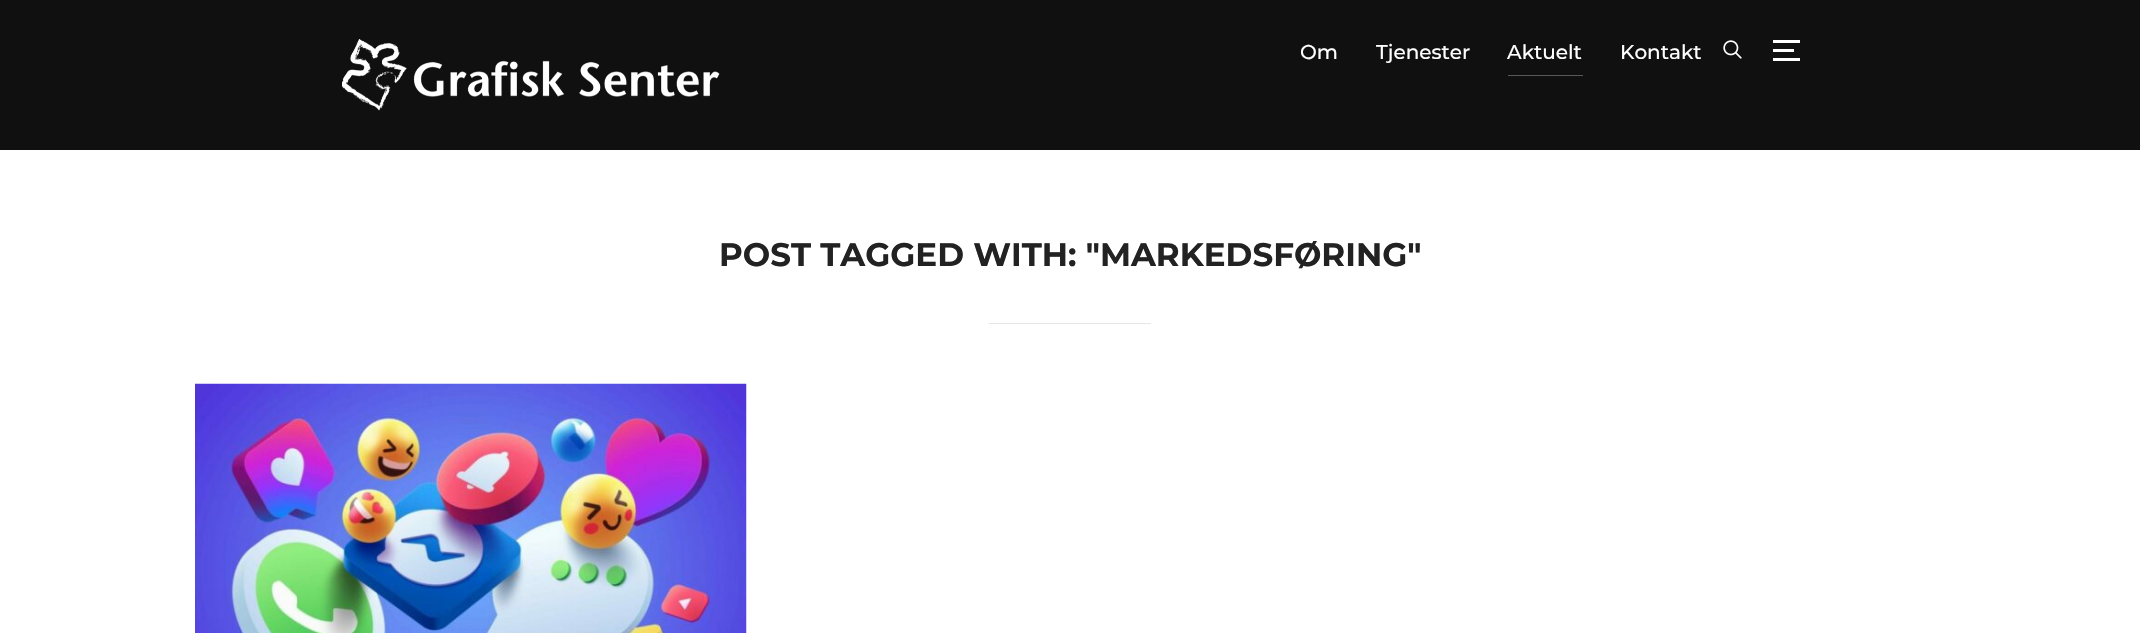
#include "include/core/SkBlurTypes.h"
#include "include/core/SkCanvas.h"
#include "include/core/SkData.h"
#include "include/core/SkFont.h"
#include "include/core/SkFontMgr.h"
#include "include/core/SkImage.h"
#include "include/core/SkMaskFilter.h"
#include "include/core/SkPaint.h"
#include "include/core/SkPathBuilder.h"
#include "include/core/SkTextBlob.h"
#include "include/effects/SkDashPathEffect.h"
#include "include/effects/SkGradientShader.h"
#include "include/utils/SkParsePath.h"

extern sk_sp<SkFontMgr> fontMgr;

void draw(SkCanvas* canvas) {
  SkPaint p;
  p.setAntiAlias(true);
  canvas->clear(SK_ColorWHITE);
  p.setColor(SkColorSetRGB(16, 16, 16));
  canvas->drawRect(SkRect::MakeLTRB(0, 0, 2140, 150), p);
  canvas->drawImageRect(SkImages::DeferredFromEncodedData(SkData::MakeFromFileName("images/1.png")), SkRect::MakeLTRB(342, 39, 720, 111), SkSamplingOptions());
  p.setColor(SkColorSetRGB(88, 88, 88));
  canvas->drawRect(SkRect::MakeLTRB(1508, 75, 1583, 76), p);
  canvas->drawImageRect(SkImages::DeferredFromEncodedData(SkData::MakeFromFileName("images/2.png")), SkRect::MakeLTRB(1723, 40, 1742, 59), SkSamplingOptions());
  p.setColor(SK_ColorWHITE);
  canvas->drawRect(SkRect::MakeLTRB(1773, 40, 1800, 43), p);
  canvas->drawRect(SkRect::MakeLTRB(1773, 49, 1794, 52), p);
  canvas->drawRect(SkRect::MakeLTRB(1773, 58, 1800, 61), p);
  p.setColor(SkColorSetRGB(230, 230, 230));
  canvas->drawRect(SkRect::MakeLTRB(989, 323, 1151, 324), p);
  canvas->drawImageRect(SkImages::DeferredFromEncodedData(SkData::MakeFromFileName("images/3.png")), SkRect::MakeLTRB(195, 383, 747, 633), SkSamplingOptions());
  SkFont font1(fontMgr->matchFamilyStyle("Montserrat", SkFontStyle(500, SkFontStyle::kNormal_Width, SkFontStyle::kUpright_Slant)), 20);
  font1.setSubpixel(true);
  p.setColor(SK_ColorWHITE);
  canvas->drawString("Om", 1300, 59, font1, p);
  canvas->drawString("Tjenester", 1376, 59, font1, p);
  canvas->drawString("Aktuelt", 1507, 59, font1, p);
  canvas->drawString("Kontakt", 1620, 59, font1, p);
  SkFont font2(fontMgr->matchFamilyStyle("Montserrat", SkFontStyle::Bold()), 32.5f);
  font2.setSubpixel(true);
  p.setColor(SkColorSetRGB(34, 34, 34));
  canvas->drawString("POST TAGGED WITH: \"MARKEDSFØRING\"", 719, 266, font2, p);
}
